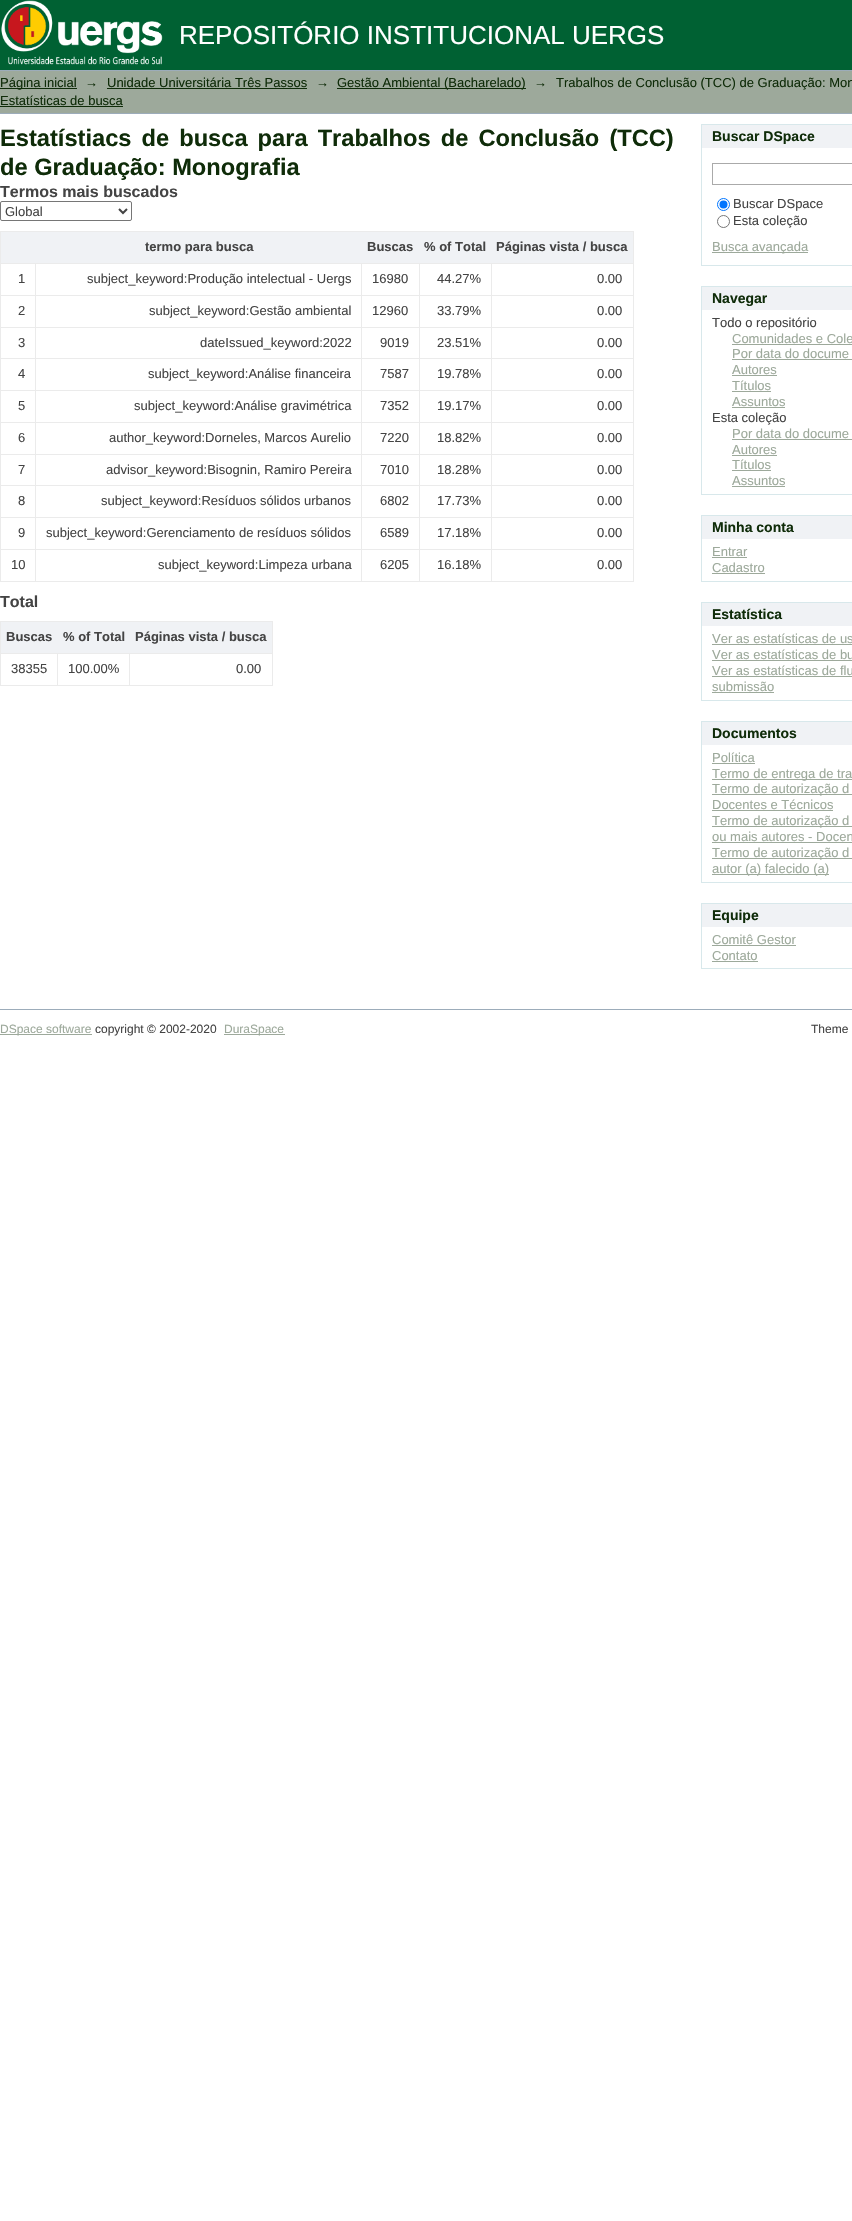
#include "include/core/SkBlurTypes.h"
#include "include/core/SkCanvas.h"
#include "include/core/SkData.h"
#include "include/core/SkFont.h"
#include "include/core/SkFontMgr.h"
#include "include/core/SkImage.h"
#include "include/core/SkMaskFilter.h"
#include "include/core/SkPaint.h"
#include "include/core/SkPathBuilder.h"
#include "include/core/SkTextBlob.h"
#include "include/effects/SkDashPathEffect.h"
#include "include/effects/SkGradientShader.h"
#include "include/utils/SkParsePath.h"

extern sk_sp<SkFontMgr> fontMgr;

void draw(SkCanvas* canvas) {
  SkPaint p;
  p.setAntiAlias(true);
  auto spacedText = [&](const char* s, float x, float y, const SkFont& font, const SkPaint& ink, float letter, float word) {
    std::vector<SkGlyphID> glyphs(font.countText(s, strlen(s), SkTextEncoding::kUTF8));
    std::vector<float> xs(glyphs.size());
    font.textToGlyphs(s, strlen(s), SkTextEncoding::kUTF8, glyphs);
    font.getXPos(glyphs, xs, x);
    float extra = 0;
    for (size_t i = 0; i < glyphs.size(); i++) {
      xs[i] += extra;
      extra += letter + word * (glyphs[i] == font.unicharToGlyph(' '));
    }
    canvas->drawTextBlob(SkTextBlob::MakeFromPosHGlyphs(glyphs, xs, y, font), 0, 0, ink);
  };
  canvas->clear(SK_ColorWHITE);
  p.setColor(SkColorSetRGB(0, 97, 51));
  canvas->drawRect(SkRect::MakeLTRB(0, 0, 852, 70), p);
  canvas->drawImageRect(SkImages::DeferredFromEncodedData(SkData::MakeFromFileName("images/1.png")), SkRect::MakeLTRB(1, 0, 163, 65), SkSamplingOptions());
  p.setColor(SkColorSetRGB(157, 169, 155));
  canvas->drawRect(SkRect::MakeLTRB(0, 71, 852, 113), p);
  p.setColor(SkColorSetRGB(156, 172, 186));
  canvas->drawRect(SkRect::MakeLTRB(0, 70, 852, 71), p);
  canvas->drawRect(SkRect::MakeLTRB(0, 113, 852, 114), p);
  p.setColor(SkColorSetRGB(15, 44, 9));
  canvas->drawRect(SkRect::MakeLTRB(0, 88, 77, 89), p);
  canvas->drawRect(SkRect::MakeLTRB(107, 88, 307, 89), p);
  canvas->drawRect(SkRect::MakeLTRB(337, 88, 526, 89), p);
  canvas->drawRect(SkRect::MakeLTRB(0, 106, 123, 107), p);
  p.setStyle(SkPaint::kStroke_Style);
  p.setStrokeWidth(1);
  p.setColor(SkColorSetRGB(118, 118, 118));
  canvas->drawRoundRect(SkRect::MakeLTRB(0.5f, 201.5f, 131.5f, 220.5f), 1.5f, 1.5f, p);
  p.setStrokeWidth(2);
  p.setColor(SkColorSetRGB(68, 68, 68));
  canvas->drawPath(SkPathBuilder().moveTo(119, 209).lineTo(123, 213).lineTo(127, 209).detach(), p);
  p.setStyle(SkPaint::kFill_Style);
  p.setColor(SkColorSetRGB(235, 235, 235));
  canvas->drawRect(SkRect::MakeLTRB(0, 231, 634, 232), p);
  canvas->drawRect(SkRect::MakeLTRB(0, 263, 634, 264), p);
  canvas->drawRect(SkRect::MakeLTRB(0, 295, 634, 296), p);
  canvas->drawRect(SkRect::MakeLTRB(0, 327, 634, 328), p);
  canvas->drawRect(SkRect::MakeLTRB(0, 358, 634, 359), p);
  canvas->drawRect(SkRect::MakeLTRB(0, 390, 634, 391), p);
  canvas->drawRect(SkRect::MakeLTRB(0, 422, 634, 423), p);
  canvas->drawRect(SkRect::MakeLTRB(0, 454, 634, 455), p);
  canvas->drawRect(SkRect::MakeLTRB(0, 485, 634, 486), p);
  canvas->drawRect(SkRect::MakeLTRB(0, 517, 634, 518), p);
  canvas->drawRect(SkRect::MakeLTRB(0, 549, 634, 550), p);
  canvas->drawRect(SkRect::MakeLTRB(633, 549, 634, 582), p);
  canvas->drawRect(SkRect::MakeLTRB(633, 517, 634, 550), p);
  canvas->drawRect(SkRect::MakeLTRB(633, 485, 634, 518), p);
  canvas->drawRect(SkRect::MakeLTRB(633, 454, 634, 486), p);
  canvas->drawRect(SkRect::MakeLTRB(633, 422, 634, 455), p);
  canvas->drawRect(SkRect::MakeLTRB(633, 390, 634, 423), p);
  canvas->drawRect(SkRect::MakeLTRB(633, 358, 634, 391), p);
  canvas->drawRect(SkRect::MakeLTRB(633, 327, 634, 359), p);
  canvas->drawRect(SkRect::MakeLTRB(633, 295, 634, 328), p);
  canvas->drawRect(SkRect::MakeLTRB(633, 263, 634, 296), p);
  canvas->drawRect(SkRect::MakeLTRB(633, 231, 634, 264), p);
  canvas->drawRect(SkRect::MakeLTRB(0, 581, 634, 582), p);
  canvas->drawRect(SkRect::MakeLTRB(0, 549, 1, 582), p);
  canvas->drawRect(SkRect::MakeLTRB(0, 517, 1, 550), p);
  canvas->drawRect(SkRect::MakeLTRB(0, 485, 1, 518), p);
  canvas->drawRect(SkRect::MakeLTRB(0, 454, 1, 486), p);
  canvas->drawRect(SkRect::MakeLTRB(0, 422, 1, 455), p);
  canvas->drawRect(SkRect::MakeLTRB(0, 390, 1, 423), p);
  canvas->drawRect(SkRect::MakeLTRB(0, 358, 1, 391), p);
  canvas->drawRect(SkRect::MakeLTRB(0, 327, 1, 359), p);
  canvas->drawRect(SkRect::MakeLTRB(0, 295, 1, 328), p);
  canvas->drawRect(SkRect::MakeLTRB(0, 263, 1, 296), p);
  canvas->drawRect(SkRect::MakeLTRB(0, 231, 1, 264), p);
  p.setColor(SkColorSetRGB(240, 242, 245));
  canvas->drawRect(SkRect::MakeLTRB(1, 232, 633, 263), p);
  p.setColor(SkColorSetRGB(235, 235, 235));
  canvas->drawRect(SkRect::MakeLTRB(35, 263, 36, 582), p);
  canvas->drawRect(SkRect::MakeLTRB(361, 263, 362, 582), p);
  canvas->drawRect(SkRect::MakeLTRB(419, 263, 420, 582), p);
  canvas->drawRect(SkRect::MakeLTRB(491, 263, 492, 582), p);
  canvas->drawRect(SkRect::MakeLTRB(0, 621, 273, 622), p);
  canvas->drawRect(SkRect::MakeLTRB(0, 653, 273, 654), p);
  canvas->drawRect(SkRect::MakeLTRB(272, 653, 273, 686), p);
  canvas->drawRect(SkRect::MakeLTRB(272, 621, 273, 654), p);
  canvas->drawRect(SkRect::MakeLTRB(0, 685, 273, 686), p);
  canvas->drawRect(SkRect::MakeLTRB(0, 653, 1, 686), p);
  canvas->drawRect(SkRect::MakeLTRB(0, 621, 1, 654), p);
  p.setColor(SkColorSetRGB(240, 242, 245));
  canvas->drawRect(SkRect::MakeLTRB(1, 622, 272, 653), p);
  p.setColor(SkColorSetRGB(235, 235, 235));
  canvas->drawRect(SkRect::MakeLTRB(57, 653, 58, 686), p);
  canvas->drawRect(SkRect::MakeLTRB(129, 653, 130, 686), p);
  p.setColor(SkColorSetRGB(240, 242, 245));
  canvas->drawRect(SkRect::MakeLTRB(702, 125, 852, 148), p);
  p.setColor(SkColorSetRGB(216, 232, 235));
  canvas->drawRect(SkRect::MakeLTRB(701, 124, 852, 125), p);
  canvas->drawRect(SkRect::MakeLTRB(701, 124, 702, 148), p);
  canvas->drawRect(SkRect::MakeLTRB(701, 265, 852, 266), p);
  canvas->drawRect(SkRect::MakeLTRB(701, 148, 702, 266), p);
  p.setStyle(SkPaint::kStroke_Style);
  p.setStrokeWidth(1);
  p.setColor(SkColorSetRGB(170, 170, 170));
  canvas->drawRect(SkRect::MakeLTRB(712.5f, 163.5f, 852.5f, 184.5f), p);
  p.setColor(SkColorSetRGB(0, 117, 255));
  canvas->drawCircle(723.5f, 204.5f, 6, p);
  p.setStyle(SkPaint::kFill_Style);
  canvas->drawCircle(723.5f, 204.5f, 4, p);
  p.setStyle(SkPaint::kStroke_Style);
  p.setColor(SkColorSetRGB(118, 118, 118));
  canvas->drawCircle(723.5f, 221.5f, 6, p);
  p.setStyle(SkPaint::kFill_Style);
  p.setColor(SkColorSetRGB(157, 169, 155));
  canvas->drawRect(SkRect::MakeLTRB(712, 252, 808, 253), p);
  p.setColor(SkColorSetRGB(240, 242, 245));
  canvas->drawRect(SkRect::MakeLTRB(702, 287, 852, 310), p);
  p.setColor(SkColorSetRGB(216, 232, 235));
  canvas->drawRect(SkRect::MakeLTRB(701, 286, 852, 287), p);
  canvas->drawRect(SkRect::MakeLTRB(701, 286, 702, 310), p);
  canvas->drawRect(SkRect::MakeLTRB(701, 494, 852, 495), p);
  canvas->drawRect(SkRect::MakeLTRB(701, 310, 702, 495), p);
  p.setColor(SkColorSetRGB(157, 169, 155));
  canvas->drawRect(SkRect::MakeLTRB(732, 344, 852, 345), p);
  canvas->drawRect(SkRect::MakeLTRB(732, 359, 852, 360), p);
  canvas->drawRect(SkRect::MakeLTRB(732, 375, 777, 376), p);
  canvas->drawRect(SkRect::MakeLTRB(732, 391, 771, 392), p);
  canvas->drawRect(SkRect::MakeLTRB(732, 407, 785, 408), p);
  canvas->drawRect(SkRect::MakeLTRB(732, 439, 852, 440), p);
  canvas->drawRect(SkRect::MakeLTRB(732, 455, 777, 456), p);
  canvas->drawRect(SkRect::MakeLTRB(732, 470, 771, 471), p);
  canvas->drawRect(SkRect::MakeLTRB(732, 486, 785, 487), p);
  p.setColor(SkColorSetRGB(240, 242, 245));
  canvas->drawRect(SkRect::MakeLTRB(702, 516, 852, 539), p);
  p.setColor(SkColorSetRGB(216, 232, 235));
  canvas->drawRect(SkRect::MakeLTRB(701, 515, 852, 516), p);
  canvas->drawRect(SkRect::MakeLTRB(701, 515, 702, 539), p);
  canvas->drawRect(SkRect::MakeLTRB(701, 581, 852, 582), p);
  canvas->drawRect(SkRect::MakeLTRB(701, 539, 702, 582), p);
  p.setColor(SkColorSetRGB(157, 169, 155));
  canvas->drawRect(SkRect::MakeLTRB(712, 557, 747, 558), p);
  canvas->drawRect(SkRect::MakeLTRB(712, 573, 765, 574), p);
  p.setColor(SkColorSetRGB(240, 242, 245));
  canvas->drawRect(SkRect::MakeLTRB(702, 603, 852, 626), p);
  p.setColor(SkColorSetRGB(216, 232, 235));
  canvas->drawRect(SkRect::MakeLTRB(701, 602, 852, 603), p);
  canvas->drawRect(SkRect::MakeLTRB(701, 602, 702, 626), p);
  canvas->drawRect(SkRect::MakeLTRB(701, 700, 852, 701), p);
  canvas->drawRect(SkRect::MakeLTRB(701, 626, 702, 701), p);
  p.setColor(SkColorSetRGB(157, 169, 155));
  canvas->drawRect(SkRect::MakeLTRB(712, 644, 852, 645), p);
  canvas->drawRect(SkRect::MakeLTRB(712, 660, 852, 661), p);
  canvas->drawRect(SkRect::MakeLTRB(712, 676, 852, 677), p);
  canvas->drawRect(SkRect::MakeLTRB(712, 692, 774, 693), p);
  p.setColor(SkColorSetRGB(240, 242, 245));
  canvas->drawRect(SkRect::MakeLTRB(702, 722, 852, 745), p);
  p.setColor(SkColorSetRGB(216, 232, 235));
  canvas->drawRect(SkRect::MakeLTRB(701, 721, 852, 722), p);
  canvas->drawRect(SkRect::MakeLTRB(701, 721, 702, 745), p);
  canvas->drawRect(SkRect::MakeLTRB(701, 882, 852, 883), p);
  canvas->drawRect(SkRect::MakeLTRB(701, 745, 702, 883), p);
  p.setColor(SkColorSetRGB(157, 169, 155));
  canvas->drawRect(SkRect::MakeLTRB(712, 763, 755, 764), p);
  canvas->drawRect(SkRect::MakeLTRB(712, 779, 852, 780), p);
  canvas->drawRect(SkRect::MakeLTRB(712, 794, 852, 795), p);
  canvas->drawRect(SkRect::MakeLTRB(712, 810, 833, 811), p);
  canvas->drawRect(SkRect::MakeLTRB(712, 826, 852, 827), p);
  canvas->drawRect(SkRect::MakeLTRB(712, 842, 852, 843), p);
  canvas->drawRect(SkRect::MakeLTRB(712, 858, 852, 859), p);
  canvas->drawRect(SkRect::MakeLTRB(712, 874, 829, 875), p);
  p.setColor(SkColorSetRGB(240, 242, 245));
  canvas->drawRect(SkRect::MakeLTRB(702, 904, 852, 927), p);
  p.setColor(SkColorSetRGB(216, 232, 235));
  canvas->drawRect(SkRect::MakeLTRB(701, 903, 852, 904), p);
  canvas->drawRect(SkRect::MakeLTRB(701, 903, 702, 927), p);
  canvas->drawRect(SkRect::MakeLTRB(701, 968, 852, 969), p);
  canvas->drawRect(SkRect::MakeLTRB(701, 927, 702, 969), p);
  p.setColor(SkColorSetRGB(157, 169, 155));
  canvas->drawRect(SkRect::MakeLTRB(712, 945, 796, 946), p);
  canvas->drawRect(SkRect::MakeLTRB(712, 961, 758, 962), p);
  p.setColor(SkColorSetRGB(156, 172, 186));
  canvas->drawRect(SkRect::MakeLTRB(0, 1009, 852, 1010), p);
  p.setColor(SkColorSetRGB(157, 169, 155));
  canvas->drawRect(SkRect::MakeLTRB(0, 1034, 92, 1035), p);
  canvas->drawRect(SkRect::MakeLTRB(224, 1034, 285, 1035), p);
  SkFont font1(fontMgr->matchFamilyStyle("Liberation Sans", SkFontStyle::Normal()), 26);
  font1.setSubpixel(true);
  p.setColor(SK_ColorWHITE);
  canvas->drawString("REPOSITÓRIO INSTITUCIONAL UERGS", 179, 44, font1, p);
  SkFont font2(fontMgr->matchFamilyStyle("Liberation Sans", SkFontStyle::Normal()), 13);
  font2.setSubpixel(true);
  p.setColor(SkColorSetRGB(15, 44, 9));
  canvas->drawString("Página inicial", 0, 87, font2, p);
  canvas->drawString("→", 85, 87, font2, p);
  canvas->drawString("Unidade Universitária Três Passos", 107, 87, font2, p);
  canvas->drawString("→", 316, 87, font2, p);
  canvas->drawString("Gestão Ambiental (Bacharelado)", 337, 87, font2, p);
  canvas->drawString("→", 534, 87, font2, p);
  canvas->drawString("Trabalhos de Conclusão (TCC) de Graduação: Mon", 556, 87, font2, p);
  canvas->drawString("Estatísticas de busca", 0, 105, font2, p);
  SkFont font3(fontMgr->matchFamilyStyle("Liberation Sans", SkFontStyle::Bold()), 23.65f);
  font3.setSubpixel(true);
  spacedText("Estatístiacs de busca para Trabalhos de Conclusão (TCC)", 0, 146, font3, p, 0, 3.5f);
  canvas->drawString("de Graduação: Monografia", 0, 175, font3, p);
  SkFont font4(fontMgr->matchFamilyStyle("Liberation Sans", SkFontStyle::Bold()), 16);
  font4.setSubpixel(true);
  p.setColor(SkColorSetRGB(68, 68, 68));
  canvas->drawString("Termos mais buscados", 0, 197, font4, p);
  canvas->drawString("Global", 5, 216, font2, p);
  SkFont font5(fontMgr->matchFamilyStyle("Liberation Sans", SkFontStyle::Bold()), 13);
  font5.setSubpixel(true);
  canvas->drawString("termo para busca", 145, 251, font5, p);
  canvas->drawString("Buscas", 367, 251, font5, p);
  canvas->drawString("% of Total", 424, 251, font5, p);
  canvas->drawString("Páginas vista / busca", 496, 251, font5, p);
  canvas->drawString("1", 18, 283, font2, p);
  canvas->drawString("subject_keyword:Produção intelectual - Uergs", 87, 283, font2, p);
  canvas->drawString("16980", 372, 283, font2, p);
  canvas->drawString("44.27%", 437, 283, font2, p);
  canvas->drawString("0.00", 597, 283, font2, p);
  canvas->drawString("2", 18, 315, font2, p);
  canvas->drawString("subject_keyword:Gestão ambiental", 149, 315, font2, p);
  canvas->drawString("12960", 372, 315, font2, p);
  canvas->drawString("33.79%", 437, 315, font2, p);
  canvas->drawString("0.00", 597, 315, font2, p);
  canvas->drawString("3", 18, 347, font2, p);
  canvas->drawString("dateIssued_keyword:2022", 200, 347, font2, p);
  canvas->drawString("9019", 380, 347, font2, p);
  canvas->drawString("23.51%", 437, 347, font2, p);
  canvas->drawString("0.00", 597, 347, font2, p);
  canvas->drawString("4", 18, 378, font2, p);
  canvas->drawString("subject_keyword:Análise financeira", 148, 378, font2, p);
  canvas->drawString("7587", 380, 378, font2, p);
  canvas->drawString("19.78%", 437, 378, font2, p);
  canvas->drawString("0.00", 597, 378, font2, p);
  canvas->drawString("5", 18, 410, font2, p);
  canvas->drawString("subject_keyword:Análise gravimétrica", 134, 410, font2, p);
  canvas->drawString("7352", 380, 410, font2, p);
  canvas->drawString("19.17%", 437, 410, font2, p);
  canvas->drawString("0.00", 597, 410, font2, p);
  canvas->drawString("6", 18, 442, font2, p);
  canvas->drawString("author_keyword:Dorneles, Marcos Aurelio", 109, 442, font2, p);
  canvas->drawString("7220", 380, 442, font2, p);
  canvas->drawString("18.82%", 437, 442, font2, p);
  canvas->drawString("0.00", 597, 442, font2, p);
  canvas->drawString("7", 18, 474, font2, p);
  canvas->drawString("advisor_keyword:Bisognin, Ramiro Pereira", 106, 474, font2, p);
  canvas->drawString("7010", 380, 474, font2, p);
  canvas->drawString("18.28%", 437, 474, font2, p);
  canvas->drawString("0.00", 597, 474, font2, p);
  canvas->drawString("8", 18, 505, font2, p);
  canvas->drawString("subject_keyword:Resíduos sólidos urbanos", 101, 505, font2, p);
  canvas->drawString("6802", 380, 505, font2, p);
  canvas->drawString("17.73%", 437, 505, font2, p);
  canvas->drawString("0.00", 597, 505, font2, p);
  canvas->drawString("9", 18, 537, font2, p);
  canvas->drawString("subject_keyword:Gerenciamento de resíduos sólidos", 46, 537, font2, p);
  canvas->drawString("6589", 380, 537, font2, p);
  canvas->drawString("17.18%", 437, 537, font2, p);
  canvas->drawString("0.00", 597, 537, font2, p);
  canvas->drawString("10", 11, 569, font2, p);
  canvas->drawString("subject_keyword:Limpeza urbana", 158, 569, font2, p);
  canvas->drawString("6205", 380, 569, font2, p);
  canvas->drawString("16.18%", 437, 569, font2, p);
  canvas->drawString("0.00", 597, 569, font2, p);
  canvas->drawString("Total", 0, 607, font4, p);
  canvas->drawString("Buscas", 6, 641, font5, p);
  canvas->drawString("% of Total", 63, 641, font5, p);
  canvas->drawString("Páginas vista / busca", 135, 641, font5, p);
  canvas->drawString("38355", 11, 673, font2, p);
  canvas->drawString("100.00%", 68, 673, font2, p);
  canvas->drawString("0.00", 236, 673, font2, p);
  SkFont font6(fontMgr->matchFamilyStyle("Liberation Sans", SkFontStyle::Bold()), 14);
  font6.setSubpixel(true);
  p.setColor(SkColorSetRGB(15, 44, 9));
  canvas->drawString("Buscar DSpace", 712, 141, font6, p);
  p.setColor(SkColorSetRGB(68, 68, 68));
  canvas->drawString("Buscar DSpace", 733, 208, font2, p);
  canvas->drawString("Esta coleção", 733, 225, font2, p);
  p.setColor(SkColorSetRGB(157, 169, 155));
  canvas->drawString("Busca avançada", 712, 251, font2, p);
  p.setColor(SkColorSetRGB(15, 44, 9));
  canvas->drawString("Navegar", 712, 303, font6, p);
  p.setColor(SkColorSetRGB(68, 68, 68));
  canvas->drawString("Todo o repositório", 712, 327, font2, p);
  p.setColor(SkColorSetRGB(157, 169, 155));
  canvas->drawString("Comunidades e Cole", 732, 343, font2, p);
  canvas->drawString("Por data do docume", 732, 358, font2, p);
  canvas->drawString("Autores", 732, 374, font2, p);
  canvas->drawString("Títulos", 732, 390, font2, p);
  canvas->drawString("Assuntos", 732, 406, font2, p);
  p.setColor(SkColorSetRGB(68, 68, 68));
  canvas->drawString("Esta coleção", 712, 422, font2, p);
  p.setColor(SkColorSetRGB(157, 169, 155));
  canvas->drawString("Por data do docume", 732, 438, font2, p);
  canvas->drawString("Autores", 732, 454, font2, p);
  canvas->drawString("Títulos", 732, 469, font2, p);
  canvas->drawString("Assuntos", 732, 485, font2, p);
  p.setColor(SkColorSetRGB(15, 44, 9));
  canvas->drawString("Minha conta", 712, 532, font6, p);
  p.setColor(SkColorSetRGB(157, 169, 155));
  canvas->drawString("Entrar", 712, 556, font2, p);
  canvas->drawString("Cadastro", 712, 572, font2, p);
  p.setColor(SkColorSetRGB(15, 44, 9));
  canvas->drawString("Estatística", 712, 619, font6, p);
  p.setColor(SkColorSetRGB(157, 169, 155));
  canvas->drawString("Ver as estatísticas de us", 712, 643, font2, p);
  canvas->drawString("Ver as estatísticas de bu", 712, 659, font2, p);
  canvas->drawString("Ver as estatísticas de flu", 712, 675, font2, p);
  canvas->drawString("submissão", 712, 691, font2, p);
  p.setColor(SkColorSetRGB(15, 44, 9));
  canvas->drawString("Documentos", 712, 738, font6, p);
  p.setColor(SkColorSetRGB(157, 169, 155));
  canvas->drawString("Política", 712, 762, font2, p);
  canvas->drawString("Termo de entrega de tra", 712, 778, font2, p);
  canvas->drawString("Termo de autorização d", 712, 793, font2, p);
  canvas->drawString("Docentes e Técnicos", 712, 809, font2, p);
  canvas->drawString("Termo de autorização d", 712, 825, font2, p);
  canvas->drawString("ou mais autores - Docen", 712, 841, font2, p);
  canvas->drawString("Termo de autorização d", 712, 857, font2, p);
  canvas->drawString("autor (a) falecido (a)", 712, 873, font2, p);
  p.setColor(SkColorSetRGB(15, 44, 9));
  canvas->drawString("Equipe", 712, 920, font6, p);
  p.setColor(SkColorSetRGB(157, 169, 155));
  canvas->drawString("Comitê Gestor", 712, 944, font2, p);
  canvas->drawString("Contato", 712, 960, font2, p);
  SkFont font7(fontMgr->matchFamilyStyle("Liberation Sans", SkFontStyle::Normal()), 12);
  font7.setSubpixel(true);
  canvas->drawString("DSpace software", 0, 1033, font7, p);
  p.setColor(SkColorSetRGB(68, 68, 68));
  canvas->drawString("copyright © 2002-2020", 95, 1033, font7, p);
  p.setColor(SkColorSetRGB(157, 169, 155));
  canvas->drawString("DuraSpace", 224, 1033, font7, p);
  p.setColor(SkColorSetRGB(68, 68, 68));
  canvas->drawString("Theme", 811, 1033, font7, p);
}
